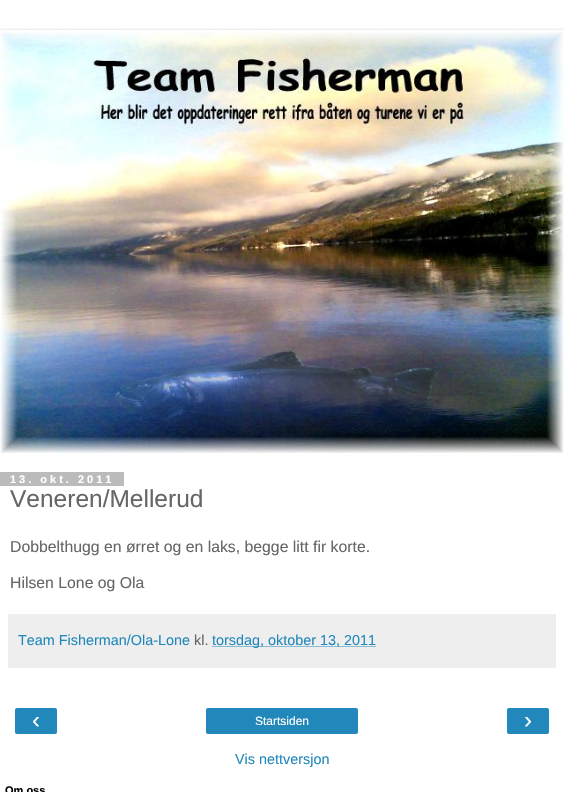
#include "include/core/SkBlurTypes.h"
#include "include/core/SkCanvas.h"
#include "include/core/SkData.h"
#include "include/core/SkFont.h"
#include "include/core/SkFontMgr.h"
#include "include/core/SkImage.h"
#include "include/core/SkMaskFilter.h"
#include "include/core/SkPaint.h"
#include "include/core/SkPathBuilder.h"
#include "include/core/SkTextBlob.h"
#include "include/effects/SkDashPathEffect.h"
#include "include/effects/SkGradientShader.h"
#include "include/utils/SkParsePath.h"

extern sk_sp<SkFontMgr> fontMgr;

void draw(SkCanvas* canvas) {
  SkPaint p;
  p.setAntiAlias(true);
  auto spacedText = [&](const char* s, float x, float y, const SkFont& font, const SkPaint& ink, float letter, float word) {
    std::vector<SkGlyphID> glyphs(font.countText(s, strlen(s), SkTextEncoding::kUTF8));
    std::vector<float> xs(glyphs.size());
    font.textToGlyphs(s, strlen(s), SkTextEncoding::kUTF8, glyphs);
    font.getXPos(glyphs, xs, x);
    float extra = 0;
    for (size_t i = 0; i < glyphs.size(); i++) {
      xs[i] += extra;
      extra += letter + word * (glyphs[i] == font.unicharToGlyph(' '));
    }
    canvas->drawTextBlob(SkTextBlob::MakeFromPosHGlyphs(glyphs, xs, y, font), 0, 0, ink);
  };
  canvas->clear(SK_ColorWHITE);
  canvas->save();
  canvas->clipRect(SkRect::MakeLTRB(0, 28, 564, 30));
  p.setColor(SkColorSetARGB(38, 0, 0, 0));
  p.setMaskFilter(SkMaskFilter::MakeBlur(kNormal_SkBlurStyle, 1.5f));
  canvas->drawRect(SkRect::MakeLTRB(0, 30, 564, 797), p);
  p.setMaskFilter(nullptr);
  canvas->restore();
  canvas->drawImageRect(SkImages::DeferredFromEncodedData(SkData::MakeFromFileName("images/1.png")), SkRect::MakeLTRB(0, 30, 564, 453), SkSamplingOptions());
  p.setColor(SkColorSetRGB(187, 187, 187));
  canvas->drawRect(SkRect::MakeLTRB(0, 472, 124, 486), p);
  p.setColor(SkColorSetRGB(238, 238, 238));
  canvas->drawRect(SkRect::MakeLTRB(8, 614, 556, 668), p);
  p.setStyle(SkPaint::kStroke_Style);
  p.setStrokeWidth(1);
  p.setColor(SkColorSetRGB(34, 136, 187));
  p.setPathEffect(SkDashPathEffect::Make({{1, 1}}, 0));
  canvas->drawPath(SkPathBuilder().moveTo(212.5f, 646.5f).lineTo(376.5f, 646.5f).detach(), p);
  p.setPathEffect(nullptr);
  p.setStyle(SkPaint::kFill_Style);
  canvas->drawRoundRect(SkRect::MakeLTRB(15, 708, 57, 734), 2, 2, p);
  canvas->drawRoundRect(SkRect::MakeLTRB(206, 708, 358, 734), 2, 2, p);
  canvas->drawRoundRect(SkRect::MakeLTRB(507, 708, 549, 734), 2, 2, p);
  SkFont font1(fontMgr->matchFamilyStyle("Liberation Sans", SkFontStyle::Bold()), 11);
  font1.setSubpixel(true);
  p.setColor(SK_ColorWHITE);
  spacedText("13. okt. 2011", 10, 483, font1, p, 3, 0);
  SkFont font2(fontMgr->matchFamilyStyle("Liberation Sans", SkFontStyle::Normal()), 24.5f);
  font2.setSubpixel(true);
  p.setColor(SkColorSetRGB(102, 102, 102));
  canvas->drawString("Veneren/Mellerud", 10, 507, font2, p);
  SkFont font3(fontMgr->matchFamilyStyle("Liberation Sans", SkFontStyle::Normal()), 15.8f);
  font3.setSubpixel(true);
  canvas->drawString("Dobbelthugg en ørret og en laks, begge litt fir korte.", 10, 552, font3, p);
  canvas->drawString("Hilsen Lone og Ola", 10, 588, font3, p);
  SkFont font4(fontMgr->matchFamilyStyle("Liberation Sans", SkFontStyle::Normal()), 14.4f);
  font4.setSubpixel(true);
  p.setColor(SkColorSetRGB(34, 136, 187));
  canvas->drawString("Team Fisherman/Ola-Lone", 18, 645, font4, p);
  p.setColor(SkColorSetRGB(102, 102, 102));
  canvas->drawString("kl.", 194, 645, font4, p);
  p.setColor(SkColorSetRGB(34, 136, 187));
  canvas->drawString("torsdag, oktober 13, 2011", 212, 645, font4, p);
  SkFont font5(fontMgr->matchFamilyStyle("Liberation Sans", SkFontStyle::Normal()), 24);
  font5.setSubpixel(true);
  p.setColor(SK_ColorWHITE);
  canvas->drawString("‹", 32, 728, font5, p);
  SkFont font6(fontMgr->matchFamilyStyle("Liberation Sans", SkFontStyle::Normal()), 12);
  font6.setSubpixel(true);
  canvas->drawString("Startsiden", 255, 725, font6, p);
  canvas->drawString("›", 524, 728, font5, p);
  p.setColor(SkColorSetRGB(34, 136, 187));
  canvas->drawString("Vis nettversjon", 235, 764, font4, p);
  p.setColor(SK_ColorBLACK);
  canvas->drawString("Om oss", 5, 794, font1, p);
}
